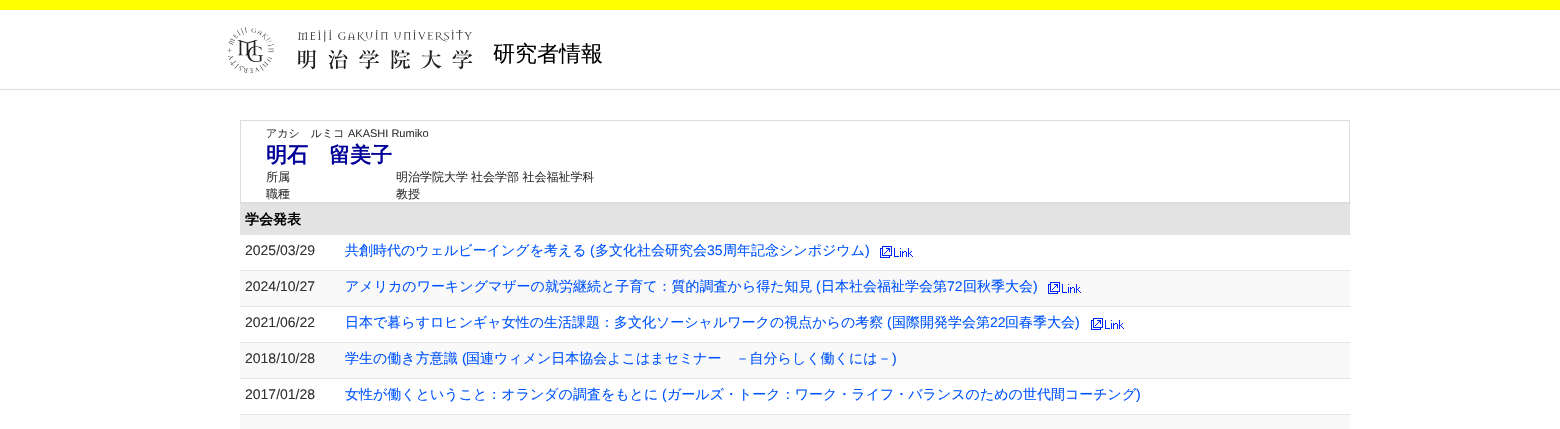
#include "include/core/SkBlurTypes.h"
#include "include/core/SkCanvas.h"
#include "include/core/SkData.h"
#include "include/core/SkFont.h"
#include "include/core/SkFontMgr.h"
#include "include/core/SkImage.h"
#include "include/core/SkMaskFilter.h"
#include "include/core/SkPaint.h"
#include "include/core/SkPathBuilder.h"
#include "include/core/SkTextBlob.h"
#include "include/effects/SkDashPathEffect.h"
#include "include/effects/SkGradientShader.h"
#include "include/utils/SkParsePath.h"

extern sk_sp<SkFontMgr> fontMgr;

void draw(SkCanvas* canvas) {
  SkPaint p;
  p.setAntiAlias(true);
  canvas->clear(SK_ColorWHITE);
  p.setColor(SkColorSetRGB(255, 255, 0));
  canvas->drawRect(SkRect::MakeLTRB(0, 0, 1560, 10), p);
  p.setColor(SkColorSetRGB(220, 220, 220));
  canvas->drawRect(SkRect::MakeLTRB(0, 89, 1560, 90), p);
  canvas->drawImageRect(SkImages::DeferredFromEncodedData(SkData::MakeFromFileName("images/1.png")), SkRect::MakeLTRB(227, 27, 473, 73), SkSamplingOptions());
  p.setStyle(SkPaint::kStroke_Style);
  p.setStrokeWidth(1);
  p.setColor(SkColorSetRGB(221, 221, 221));
  canvas->drawRect(SkRect::MakeLTRB(240.5f, 120.5f, 1349.5f, 202.5f), p);
  p.setStyle(SkPaint::kFill_Style);
  p.setColor(SkColorSetRGB(227, 227, 227));
  canvas->drawRect(SkRect::MakeLTRB(240, 204, 1350, 234), p);
  p.setColor(SkColorSetRGB(221, 221, 221));
  canvas->drawRect(SkRect::MakeLTRB(240, 203, 1351, 204), p);
  p.setColor(SkColorSetRGB(229, 229, 229));
  canvas->drawRect(SkRect::MakeLTRB(240, 234, 1351, 235), p);
  canvas->drawRect(SkRect::MakeLTRB(240, 270, 1351, 271), p);
  canvas->drawImageRect(SkImages::DeferredFromEncodedData(SkData::MakeFromFileName("images/2.png")), SkRect::MakeLTRB(880, 246, 913, 258), SkSamplingOptions());
  p.setColor(SkColorSetRGB(249, 249, 249));
  canvas->drawRect(SkRect::MakeLTRB(240, 271, 1350, 306), p);
  p.setColor(SkColorSetRGB(229, 229, 229));
  canvas->drawRect(SkRect::MakeLTRB(240, 306, 1351, 307), p);
  canvas->drawImageRect(SkImages::DeferredFromEncodedData(SkData::MakeFromFileName("images/3.png")), SkRect::MakeLTRB(1048, 282, 1081, 294), SkSamplingOptions());
  canvas->drawRect(SkRect::MakeLTRB(240, 342, 1351, 343), p);
  canvas->drawImageRect(SkImages::DeferredFromEncodedData(SkData::MakeFromFileName("images/2.png")), SkRect::MakeLTRB(1091, 318, 1124, 330), SkSamplingOptions());
  p.setColor(SkColorSetRGB(249, 249, 249));
  canvas->drawRect(SkRect::MakeLTRB(240, 343, 1350, 378), p);
  p.setColor(SkColorSetRGB(229, 229, 229));
  canvas->drawRect(SkRect::MakeLTRB(240, 378, 1351, 379), p);
  canvas->drawRect(SkRect::MakeLTRB(240, 414, 1351, 415), p);
  p.setColor(SkColorSetRGB(249, 249, 249));
  canvas->drawRect(SkRect::MakeLTRB(240, 415, 1350, 429), p);
  SkFont font1(fontMgr->matchFamilyStyle("WenQuanYi Zen Hei", SkFontStyle(500, SkFontStyle::kNormal_Width, SkFontStyle::kUpright_Slant)), 22);
  font1.setSubpixel(true);
  p.setColor(SK_ColorBLACK);
  canvas->drawString("研究者情報", 493, 61, font1, p);
  SkFont font2(fontMgr->matchFamilyStyle("WenQuanYi Zen Hei", SkFontStyle(500, SkFontStyle::kNormal_Width, SkFontStyle::kUpright_Slant)), 11);
  font2.setSubpixel(true);
  p.setColor(SkColorSetRGB(51, 51, 51));
  canvas->drawString("アカシ　ルミコ", 266, 137, font2, p);
  SkFont font3(fontMgr->matchFamilyStyle("Liberation Sans", SkFontStyle::Normal()), 11);
  font3.setSubpixel(true);
  canvas->drawString("AKASHI Rumiko", 348, 137, font3, p);
  SkFont font4(fontMgr->matchFamilyStyle("WenQuanYi Zen Hei", SkFontStyle::Bold()), 21);
  font4.setSubpixel(true);
  p.setColor(SkColorSetRGB(0, 0, 153));
  canvas->drawString("明石　留美子", 266, 162, font4, p);
  SkFont font5(fontMgr->matchFamilyStyle("WenQuanYi Zen Hei", SkFontStyle(500, SkFontStyle::kNormal_Width, SkFontStyle::kUpright_Slant)), 12);
  font5.setSubpixel(true);
  p.setColor(SkColorSetRGB(51, 51, 51));
  canvas->drawString("所属", 266, 181, font5, p);
  canvas->drawString("明治学院大学", 396, 181, font5, p);
  canvas->drawString("社会学部 社会福祉学科", 471, 181, font5, p);
  canvas->drawString("職種", 266, 198, font5, p);
  canvas->drawString("教授", 396, 198, font5, p);
  SkFont font6(fontMgr->matchFamilyStyle("WenQuanYi Zen Hei", SkFontStyle::Bold()), 14);
  font6.setSubpixel(true);
  p.setColor(SK_ColorBLACK);
  canvas->drawString("学会発表", 245, 224, font6, p);
  SkFont font7(fontMgr->matchFamilyStyle("Liberation Sans", SkFontStyle::Normal()), 14);
  font7.setSubpixel(true);
  p.setColor(SkColorSetRGB(51, 51, 51));
  canvas->drawString("2025/03/29", 245, 255, font7, p);
  SkFont font8(fontMgr->matchFamilyStyle("WenQuanYi Zen Hei", SkFontStyle(500, SkFontStyle::kNormal_Width, SkFontStyle::kUpright_Slant)), 14);
  font8.setSubpixel(true);
  p.setColor(SkColorSetRGB(0, 84, 255));
  canvas->drawString("共創時代のウェルビーイングを考える", 345, 255, font8, p);
  canvas->drawString("(", 590, 255, font7, p);
  canvas->drawString("多文化社会研究会", 595, 255, font8, p);
  canvas->drawString("35", 707, 255, font7, p);
  canvas->drawString("周年記念シンポジウム", 723, 255, font8, p);
  canvas->drawString(")", 865, 255, font7, p);
  p.setColor(SkColorSetRGB(51, 51, 51));
  canvas->drawString("2024/10/27", 245, 291, font7, p);
  p.setColor(SkColorSetRGB(0, 84, 255));
  canvas->drawString("アメリカのワーキングマザーの就労継続と子育て：質的調査から得た知見", 345, 291, font8, p);
  canvas->drawString("(", 816, 291, font7, p);
  canvas->drawString("日本社会福祉学会第", 821, 291, font8, p);
  canvas->drawString("72", 947, 291, font7, p);
  canvas->drawString("回秋季大会", 963, 291, font8, p);
  canvas->drawString(")", 1033, 291, font7, p);
  p.setColor(SkColorSetRGB(51, 51, 51));
  canvas->drawString("2021/06/22", 245, 327, font7, p);
  p.setColor(SkColorSetRGB(0, 84, 255));
  canvas->drawString("日本で暮らすロヒンギャ女性の生活課題：多文化ソーシャルワークの視点からの考察", 345, 327, font8, p);
  canvas->drawString("(", 887, 327, font7, p);
  canvas->drawString("国際開発学会第", 892, 327, font8, p);
  canvas->drawString("22", 990, 327, font7, p);
  canvas->drawString("回春季大会", 1005, 327, font8, p);
  canvas->drawString(")", 1075, 327, font7, p);
  p.setColor(SkColorSetRGB(51, 51, 51));
  canvas->drawString("2018/10/28", 245, 363, font7, p);
  p.setColor(SkColorSetRGB(0, 84, 255));
  canvas->drawString("学生の働き方意識", 345, 363, font8, p);
  canvas->drawString("(", 462, 363, font7, p);
  canvas->drawString("国連ウィメン日本協会よこはまセミナー　－自分らしく働くには－", 466, 363, font8, p);
  canvas->drawString(")", 892, 363, font7, p);
  p.setColor(SkColorSetRGB(51, 51, 51));
  canvas->drawString("2017/01/28", 245, 399, font7, p);
  p.setColor(SkColorSetRGB(0, 84, 255));
  canvas->drawString("女性が働くということ：オランダの調査をもとに", 345, 399, font8, p);
  canvas->drawString("(", 662, 399, font7, p);
  canvas->drawString("ガールズ・トーク：ワーク・ライフ・バランスのための世代間コーチング", 667, 399, font8, p);
  canvas->drawString(")", 1136, 399, font7, p);
}
